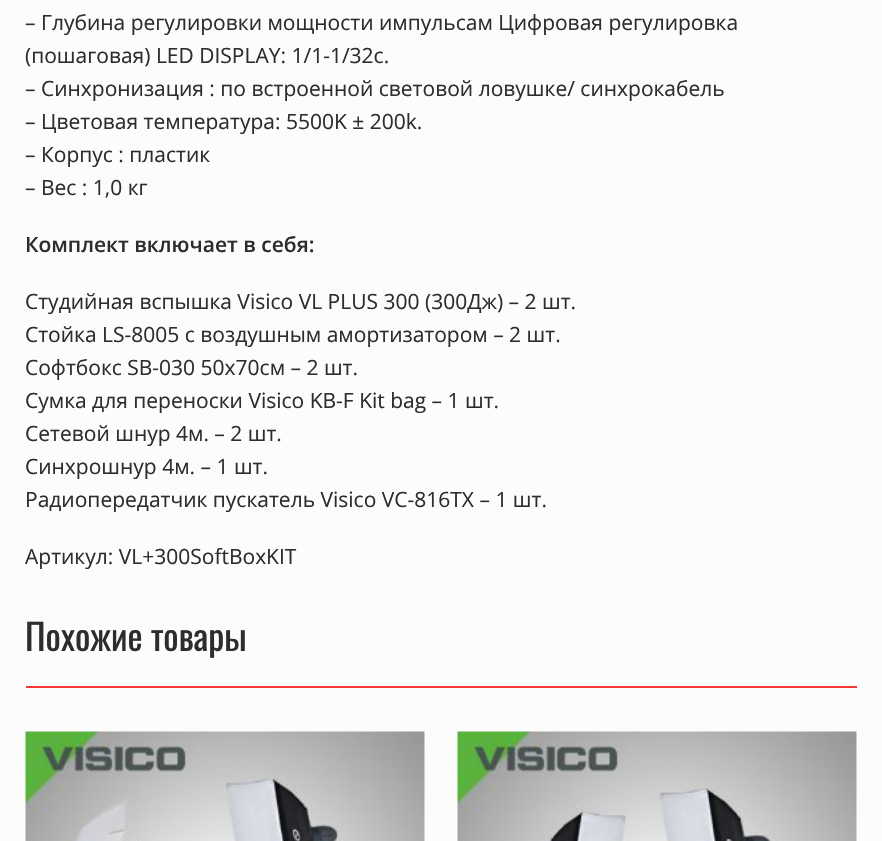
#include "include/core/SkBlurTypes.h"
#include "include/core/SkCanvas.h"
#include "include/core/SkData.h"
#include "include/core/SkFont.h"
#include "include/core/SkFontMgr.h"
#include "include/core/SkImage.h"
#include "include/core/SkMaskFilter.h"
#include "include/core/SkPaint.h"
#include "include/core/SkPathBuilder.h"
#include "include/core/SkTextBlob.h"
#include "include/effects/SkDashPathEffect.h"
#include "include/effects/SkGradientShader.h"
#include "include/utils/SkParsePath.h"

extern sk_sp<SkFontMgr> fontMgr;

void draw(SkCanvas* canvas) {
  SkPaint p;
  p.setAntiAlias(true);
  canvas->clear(SkColorSetRGB(252, 252, 252));
  p.setColor(SkColorSetRGB(247, 56, 56));
  canvas->drawRect(SkRect::MakeLTRB(26, 686, 857, 688), p);
  p.setColor(SK_ColorWHITE);
  canvas->drawRect(SkRect::MakeLTRB(424, 732, 425, 841), p);
  canvas->drawImageRect(SkImages::DeferredFromEncodedData(SkData::MakeFromFileName("images/1.png")), SkRect::MakeLTRB(25, 731, 425, 841), SkSamplingOptions());
  canvas->drawRect(SkRect::MakeLTRB(856, 732, 857, 841), p);
  canvas->drawImageRect(SkImages::DeferredFromEncodedData(SkData::MakeFromFileName("images/2.png")), SkRect::MakeLTRB(457, 731, 857, 841), SkSamplingOptions());
  SkFont font1(fontMgr->matchFamilyStyle("Open Sans", SkFontStyle::Normal()), 21);
  font1.setSubpixel(true);
  p.setColor(SkColorSetRGB(45, 45, 45));
  canvas->drawString("– Глубина регулировки мощности импульсам Цифровая регулировка", 25, 30, font1, p);
  canvas->drawString("(пошаговая) LED DISPLAY: 1/1-1/32с.", 25, 63, font1, p);
  canvas->drawString("– Синхронизация : по встроенной световой ловушке/ синхрокабель", 25, 96, font1, p);
  canvas->drawString("– Цветовая температура: 5500K ± 200k.", 25, 129, font1, p);
  canvas->drawString("– Корпус : пластик", 25, 162, font1, p);
  canvas->drawString("– Вес : 1,0 кг", 25, 195, font1, p);
  SkFont font2(fontMgr->matchFamilyStyle("Open Sans", SkFontStyle(600, SkFontStyle::kNormal_Width, SkFontStyle::kUpright_Slant)), 21);
  font2.setSubpixel(true);
  canvas->drawString("Комплект включает в себя:", 25, 252, font2, p);
  canvas->drawString("Студийная вспышка Visico VL PLUS 300 (300Дж) – 2 шт.", 25, 309, font1, p);
  canvas->drawString("Стойка LS-8005 с воздушным амортизатором – 2 шт.", 25, 342, font1, p);
  canvas->drawString("Софтбокс SB-030 50х70см – 2 шт.", 25, 375, font1, p);
  canvas->drawString("Сумка для переноски Visico KB-F Kit bag – 1 шт.", 25, 408, font1, p);
  canvas->drawString("Сетевой шнур 4м. – 2 шт.", 25, 441, font1, p);
  canvas->drawString("Синхрошнур 4м. – 1 шт.", 25, 474, font1, p);
  canvas->drawString("Радиопередатчик пускатель Visico VC-816TX – 1 шт.", 25, 507, font1, p);
  canvas->drawString("Артикул: VL+300SoftBoxKIT", 25, 564, font1, p);
  SkFont font3(fontMgr->matchFamilyStyle("Oswald", SkFontStyle::Normal()), 36);
  font3.setSubpixel(true);
  canvas->drawString("Похожие товары", 25, 651, font3, p);
}
